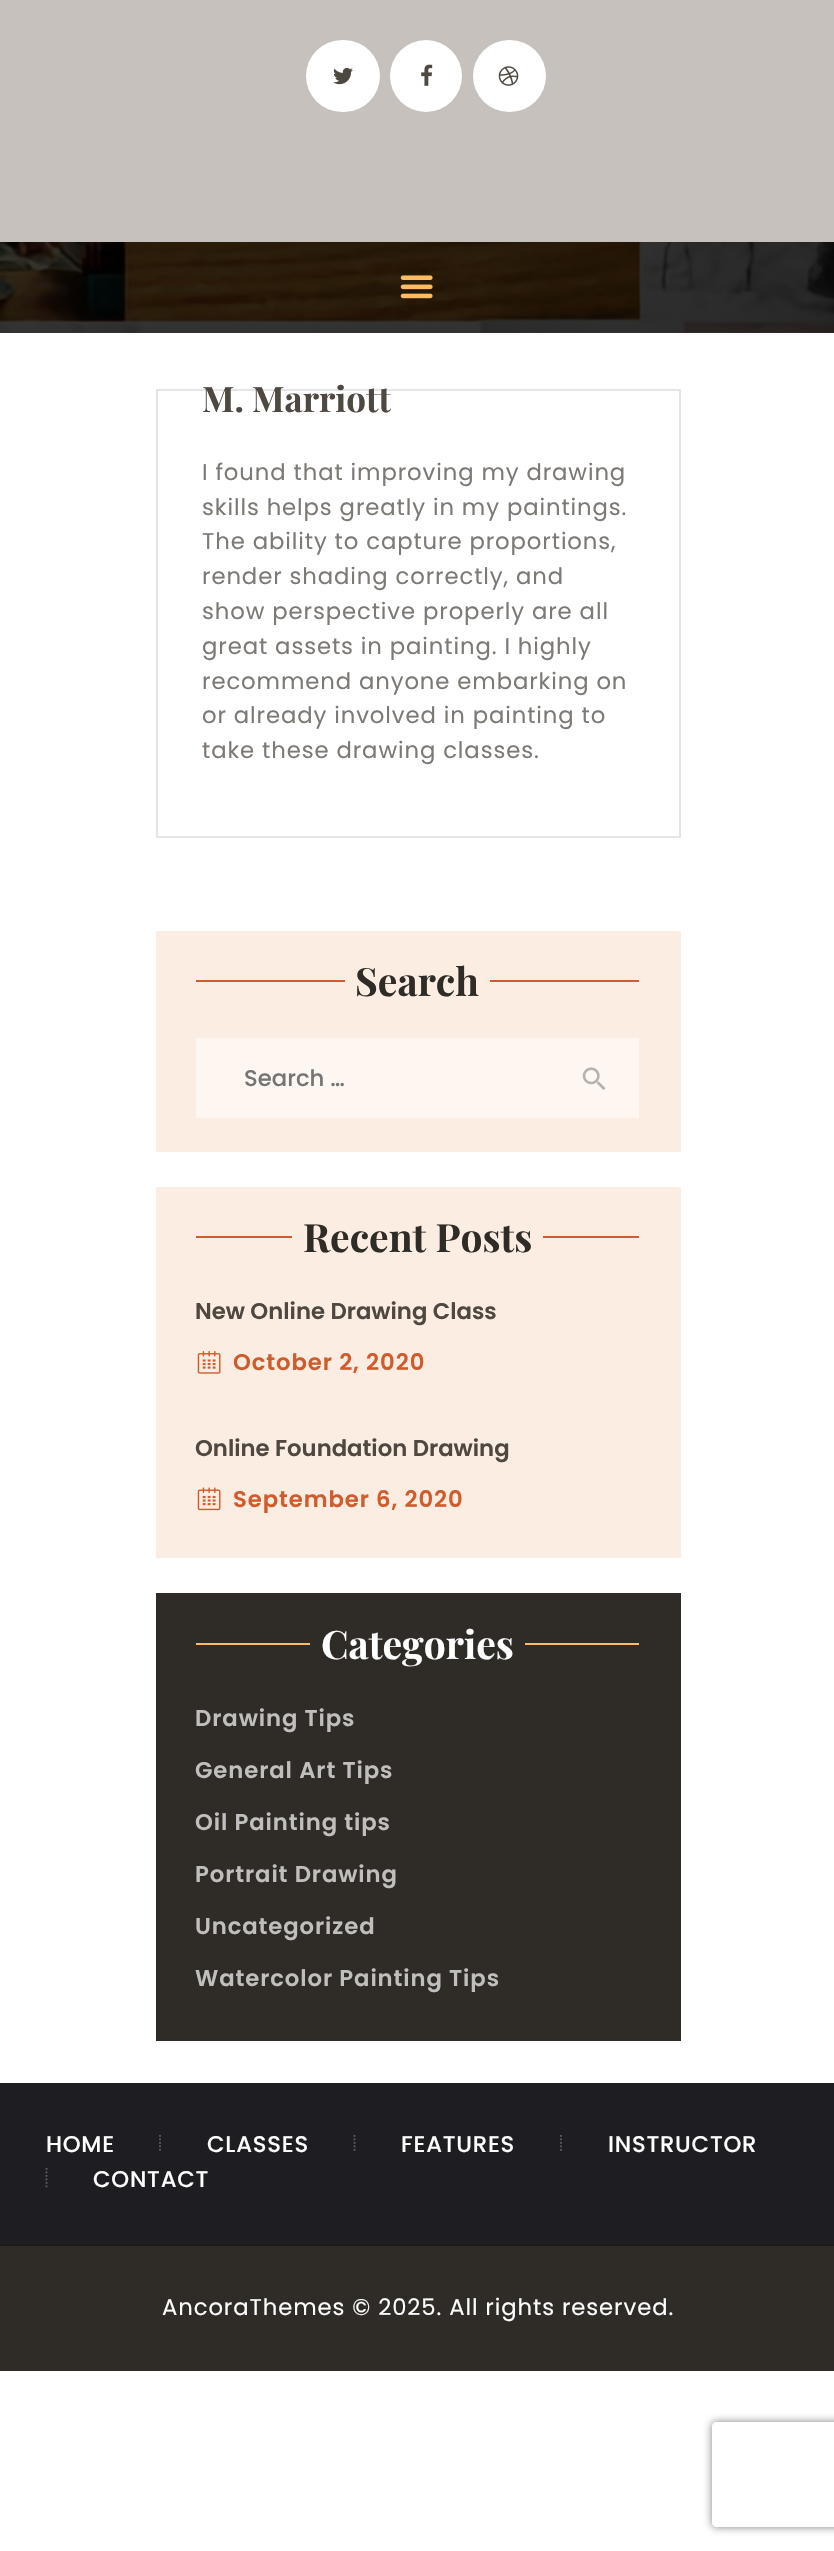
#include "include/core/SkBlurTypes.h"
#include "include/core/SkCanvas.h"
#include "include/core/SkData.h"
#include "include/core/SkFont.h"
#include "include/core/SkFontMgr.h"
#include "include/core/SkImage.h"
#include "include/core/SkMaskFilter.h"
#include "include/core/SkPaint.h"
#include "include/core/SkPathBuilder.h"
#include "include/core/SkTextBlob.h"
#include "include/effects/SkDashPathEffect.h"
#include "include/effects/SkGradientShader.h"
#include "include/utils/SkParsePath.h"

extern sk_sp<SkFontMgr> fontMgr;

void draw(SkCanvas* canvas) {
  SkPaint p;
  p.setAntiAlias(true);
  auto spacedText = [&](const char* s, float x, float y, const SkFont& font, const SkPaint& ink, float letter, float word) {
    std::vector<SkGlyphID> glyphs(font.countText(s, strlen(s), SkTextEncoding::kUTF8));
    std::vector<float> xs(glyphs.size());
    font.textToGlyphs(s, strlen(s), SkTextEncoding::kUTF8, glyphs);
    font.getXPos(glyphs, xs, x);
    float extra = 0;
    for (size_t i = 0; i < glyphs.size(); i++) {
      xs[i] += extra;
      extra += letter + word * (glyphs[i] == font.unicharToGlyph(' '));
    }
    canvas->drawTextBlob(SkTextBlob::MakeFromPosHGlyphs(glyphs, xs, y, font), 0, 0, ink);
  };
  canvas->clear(SK_ColorWHITE);
  canvas->drawImageRect(SkImages::DeferredFromEncodedData(SkData::MakeFromFileName("images/1.png")), SkRect::MakeLTRB(0, 242, 834, 333), SkSamplingOptions());
  p.setColor(SkColorSetRGB(198, 193, 188));
  canvas->drawRect(SkRect::MakeLTRB(0, 0, 834, 242), p);
  p.setColor(SK_ColorWHITE);
  canvas->drawRoundRect(SkRect::MakeLTRB(306, 40, 380, 112), 36, 36, p);
  canvas->drawImageRect(SkImages::DeferredFromEncodedData(SkData::MakeFromFileName("images/2.png")), SkRect::MakeLTRB(333, 67, 353, 85), SkSamplingOptions());
  canvas->drawCircle(426, 76, 36, p);
  canvas->drawImageRect(SkImages::DeferredFromEncodedData(SkData::MakeFromFileName("images/3.png")), SkRect::MakeLTRB(421, 64, 433, 86), SkSamplingOptions());
  canvas->drawRoundRect(SkRect::MakeLTRB(473, 40, 546, 112), 36, 36, p);
  canvas->drawImageRect(SkImages::DeferredFromEncodedData(SkData::MakeFromFileName("images/4.png")), SkRect::MakeLTRB(498, 66, 519, 86), SkSamplingOptions());
  p.setColor(SkColorSetARGB(204, 0, 0, 0));
  canvas->drawRect(SkRect::MakeLTRB(0, 242, 834, 333), p);
  canvas->drawImageRect(SkImages::DeferredFromEncodedData(SkData::MakeFromFileName("images/5.png")), SkRect::MakeLTRB(400, 275, 433, 299), SkSamplingOptions());
  p.setStyle(SkPaint::kStroke_Style);
  p.setStrokeWidth(2);
  p.setColor(SkColorSetRGB(229, 229, 229));
  canvas->drawRect(SkRect::MakeLTRB(157, 390, 680, 837), p);
  p.setStyle(SkPaint::kFill_Style);
  p.setColor(SkColorSetRGB(251, 237, 226));
  canvas->drawRect(SkRect::MakeLTRB(156, 931, 681, 1152), p);
  p.setColor(SkColorSetRGB(208, 91, 45));
  canvas->drawRect(SkRect::MakeLTRB(196, 980, 639, 982), p);
  p.setColor(SkColorSetRGB(251, 237, 226));
  canvas->drawRect(SkRect::MakeLTRB(345, 980, 490, 982), p);
  p.setColor(SkColorSetRGB(253, 246, 241));
  canvas->drawRect(SkRect::MakeLTRB(196, 1038, 639, 1118), p);
  canvas->drawImageRect(SkImages::DeferredFromEncodedData(SkData::MakeFromFileName("images/6.png")), SkRect::MakeLTRB(582, 1067, 606, 1090), SkSamplingOptions());
  p.setColor(SkColorSetRGB(251, 237, 226));
  canvas->drawRect(SkRect::MakeLTRB(156, 1187, 681, 1558), p);
  p.setColor(SkColorSetRGB(208, 91, 45));
  canvas->drawRect(SkRect::MakeLTRB(196, 1236, 639, 1238), p);
  p.setColor(SkColorSetRGB(251, 237, 226));
  canvas->drawRect(SkRect::MakeLTRB(292, 1236, 543, 1238), p);
  canvas->drawImageRect(SkImages::DeferredFromEncodedData(SkData::MakeFromFileName("images/7.png")), SkRect::MakeLTRB(197, 1351, 221, 1374), SkSamplingOptions());
  canvas->drawImageRect(SkImages::DeferredFromEncodedData(SkData::MakeFromFileName("images/8.png")), SkRect::MakeLTRB(197, 1487, 221, 1511), SkSamplingOptions());
  p.setColor(SkColorSetRGB(47, 43, 39));
  canvas->drawRect(SkRect::MakeLTRB(156, 1593, 681, 2041), p);
  p.setColor(SkColorSetRGB(254, 187, 100));
  canvas->drawRect(SkRect::MakeLTRB(196, 1643, 639, 1645), p);
  p.setColor(SkColorSetRGB(47, 43, 39));
  canvas->drawRect(SkRect::MakeLTRB(310, 1643, 525, 1645), p);
  p.setColor(SkColorSetRGB(30, 29, 34));
  canvas->drawRect(SkRect::MakeLTRB(0, 2083, 834, 2244), p);
  p.setStyle(SkPaint::kStroke_Style);
  p.setStrokeWidth(1.8f);
  p.setColor(SkColorSetRGB(95, 95, 95));
  p.setPathEffect(SkDashPathEffect::Make({{1.75f, 1.75f}}, 0));
  canvas->drawPath(SkPathBuilder().moveTo(160, 2135).lineTo(160, 2152.5f).detach(), p);
  p.setPathEffect(nullptr);
  p.setPathEffect(SkDashPathEffect::Make({{1.75f, 1.75f}}, 0));
  canvas->drawPath(SkPathBuilder().moveTo(354.5f, 2135).lineTo(354.5f, 2152.5f).detach(), p);
  p.setPathEffect(nullptr);
  p.setPathEffect(SkDashPathEffect::Make({{1.75f, 1.75f}}, 0));
  canvas->drawPath(SkPathBuilder().moveTo(561, 2135).lineTo(561, 2152.5f).detach(), p);
  p.setPathEffect(nullptr);
  p.setPathEffect(SkDashPathEffect::Make({{1.75f, 1.75f}}, 0));
  canvas->drawPath(SkPathBuilder().moveTo(46.5f, 2168).lineTo(46.5f, 2187.5f).detach(), p);
  p.setPathEffect(nullptr);
  p.setStyle(SkPaint::kFill_Style);
  p.setColor(SkColorSetRGB(47, 43, 39));
  canvas->drawRect(SkRect::MakeLTRB(0, 2246, 834, 2371), p);
  p.setColor(SkColorSetRGB(30, 26, 23));
  canvas->drawRect(SkRect::MakeLTRB(0, 2244, 834, 2246), p);
  canvas->save();
  canvas->clipPath(SkPathBuilder(SkPathFillType::kEvenOdd).moveTo(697, 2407).lineTo(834, 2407).lineTo(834, 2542).lineTo(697, 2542).close().moveTo(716, 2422).lineTo(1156, 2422).cubicTo(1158, 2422, 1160, 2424, 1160, 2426).lineTo(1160, 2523).cubicTo(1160, 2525, 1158, 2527, 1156, 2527).lineTo(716, 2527).cubicTo(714, 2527, 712, 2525, 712, 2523).lineTo(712, 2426).cubicTo(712, 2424, 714, 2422, 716, 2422).close().detach(), true);
  p.setColor(SkColorSetRGB(128, 128, 128));
  p.setMaskFilter(SkMaskFilter::MakeBlur(kNormal_SkBlurStyle, 4.5f));
  canvas->drawRoundRect(SkRect::MakeLTRB(712, 2422, 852, 2527), 4, 4, p);
  p.setMaskFilter(nullptr);
  canvas->restore();
  SkFont font1(fontMgr->matchFamilyStyle("Playfair Display", SkFontStyle::Bold()), 35);
  font1.setSubpixel(true);
  p.setColor(SkColorSetRGB(78, 72, 65));
  canvas->drawString("M. Marriott", 202, 412, font1, p);
  SkFont font2(fontMgr->matchFamilyStyle("Poppins", SkFontStyle::Normal()), 22.75f);
  font2.setSubpixel(true);
  p.setColor(SkColorSetRGB(125, 121, 117));
  spacedText("I found that improving my drawing", 202, 480, font2, p, 0.9f, 0);
  spacedText("skills helps greatly in my paintings.", 202, 515, font2, p, 0.9f, 0);
  spacedText("The ability to capture proportions,", 202, 549, font2, p, 0.9f, 0);
  spacedText("render shading correctly, and", 202, 584, font2, p, 0.9f, 0);
  spacedText("show perspective properly are all", 202, 619, font2, p, 0.9f, 0);
  spacedText("great assets in painting. I highly", 202, 654, font2, p, 0.9f, 0);
  spacedText("recommend anyone embarking on", 202, 689, font2, p, 0.9f, 0);
  spacedText("or already involved in painting to", 202, 723, font2, p, 0.9f, 0);
  spacedText("take these drawing classes.", 202, 758, font2, p, 0.9f, 0);
  SkFont font3(fontMgr->matchFamilyStyle("Playfair Display", SkFontStyle::Bold()), 39);
  font3.setSubpixel(true);
  p.setColor(SkColorSetRGB(47, 43, 39));
  canvas->drawString("Search", 355, 996, font3, p);
  SkFont font4(fontMgr->matchFamilyStyle("Poppins", SkFontStyle(500, SkFontStyle::kNormal_Width, SkFontStyle::kUpright_Slant)), 22.75f);
  font4.setSubpixel(true);
  p.setColor(SkColorSetRGB(117, 117, 117));
  canvas->drawString("Search …", 244, 1086, font4, p);
  p.setColor(SkColorSetRGB(47, 43, 39));
  canvas->drawString("Recent Posts", 303, 1252, font3, p);
  SkFont font5(fontMgr->matchFamilyStyle("Poppins", SkFontStyle(600, SkFontStyle::kNormal_Width, SkFontStyle::kUpright_Slant)), 22.75f);
  font5.setSubpixel(true);
  p.setColor(SkColorSetRGB(78, 72, 65));
  canvas->drawString("New Online Drawing Class", 195, 1319, font5, p);
  p.setColor(SkColorSetRGB(208, 91, 45));
  spacedText("October 2, 2020", 233, 1370, font5, p, 0.9f, 0);
  p.setColor(SkColorSetRGB(78, 72, 65));
  canvas->drawString("Online Foundation Drawing", 195, 1456, font5, p);
  p.setColor(SkColorSetRGB(208, 91, 45));
  spacedText("September 6, 2020", 233, 1507, font5, p, 0.9f, 0);
  p.setColor(SK_ColorWHITE);
  canvas->drawString("Categories", 321, 1659, font3, p);
  p.setColor(SkColorSetRGB(193, 191, 190));
  spacedText("Drawing Tips", 195, 1726, font5, p, 0.9f, 0);
  spacedText("General Art Tips", 195, 1778, font5, p, 0.9f, 0);
  spacedText("Oil Painting tips", 195, 1830, font5, p, 0.9f, 0);
  spacedText("Portrait Drawing", 195, 1882, font5, p, 0.9f, 0);
  spacedText("Uncategorized", 195, 1934, font5, p, 0.9f, 0);
  spacedText("Watercolor Painting Tips", 195, 1986, font5, p, 0.9f, 0);
  p.setColor(SK_ColorWHITE);
  spacedText("HOME", 46, 2152, font4, p, 0.75f, 0);
  spacedText("CLASSES", 207, 2152, font4, p, 0.75f, 0);
  spacedText("FEATURES", 401, 2152, font4, p, 0.75f, 0);
  spacedText("INSTRUCTOR", 608, 2152, font4, p, 0.75f, 0);
  spacedText("CONTACT", 93, 2187, font4, p, 0.75f, 0);
  spacedText("AncoraThemes © 2025. All rights reserved.", 162, 2315, font2, p, 0.9f, 0);
}
